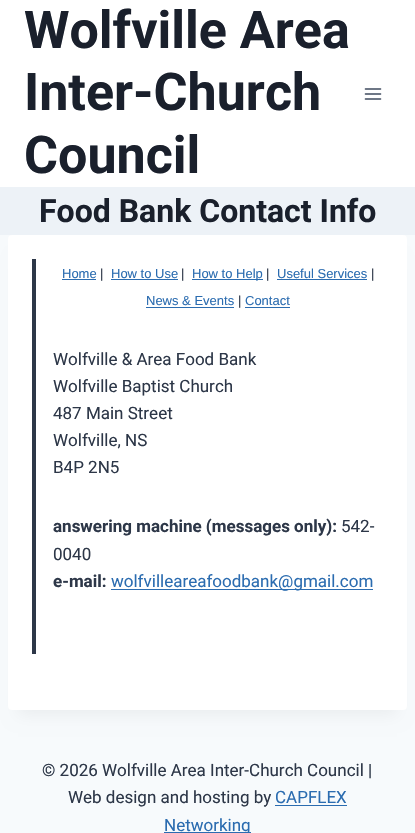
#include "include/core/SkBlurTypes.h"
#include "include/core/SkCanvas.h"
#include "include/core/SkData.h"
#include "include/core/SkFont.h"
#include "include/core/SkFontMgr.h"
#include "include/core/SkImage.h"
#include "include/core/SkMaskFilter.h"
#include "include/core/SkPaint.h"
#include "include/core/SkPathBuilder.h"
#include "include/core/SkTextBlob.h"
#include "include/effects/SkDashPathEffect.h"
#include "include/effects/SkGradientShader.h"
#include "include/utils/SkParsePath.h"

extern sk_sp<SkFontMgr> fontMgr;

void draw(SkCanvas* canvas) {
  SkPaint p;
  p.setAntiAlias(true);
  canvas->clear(SkColorSetRGB(247, 250, 252));
  p.setColor(SK_ColorWHITE);
  canvas->drawRect(SkRect::MakeLTRB(0, 0, 415, 187), p);
  canvas->drawImageRect(SkImages::DeferredFromEncodedData(SkData::MakeFromFileName("images/1.png")), SkRect::MakeLTRB(364, 88, 382, 100), SkSamplingOptions());
  p.setColor(SkColorSetRGB(237, 242, 247));
  canvas->drawRect(SkRect::MakeLTRB(0, 187, 415, 235), p);
  p.setColor(SkColorSetARGB(13, 0, 0, 0));
  p.setMaskFilter(SkMaskFilter::MakeBlur(kNormal_SkBlurStyle, 7.5f));
  canvas->drawRect(SkRect::MakeLTRB(18, 260, 397, 715), p);
  p.setMaskFilter(nullptr);
  p.setColor(SK_ColorWHITE);
  canvas->drawRoundRect(SkRect::MakeLTRB(8, 235, 407, 710), 4, 4, p);
  p.setColor(SkColorSetRGB(45, 55, 72));
  canvas->drawRect(SkRect::MakeLTRB(32, 259, 36, 654), p);
  p.setColor(SkColorSetRGB(43, 108, 176));
  canvas->drawRect(SkRect::MakeLTRB(62, 279, 96, 280), p);
  canvas->drawRect(SkRect::MakeLTRB(111, 279, 178, 280), p);
  canvas->drawRect(SkRect::MakeLTRB(192, 279, 263, 280), p);
  canvas->drawRect(SkRect::MakeLTRB(277, 279, 367, 280), p);
  canvas->drawRect(SkRect::MakeLTRB(146, 307, 234, 308), p);
  canvas->drawRect(SkRect::MakeLTRB(245, 307, 290, 308), p);
  canvas->drawRect(SkRect::MakeLTRB(111, 589, 373, 590), p);
  canvas->drawRect(SkRect::MakeLTRB(275, 805, 347, 806), p);
  canvas->drawRect(SkRect::MakeLTRB(164, 832, 251, 833), p);
  SkFont font1(fontMgr->matchFamilyStyle("Roboto", SkFontStyle::Bold()), 52);
  font1.setSubpixel(true);
  p.setColor(SkColorSetRGB(26, 32, 44));
  canvas->drawString("Wolfville Area", 24, 48, font1, p);
  canvas->drawString("Inter-Church", 24, 110, font1, p);
  canvas->drawString("Council", 24, 173, font1, p);
  SkFont font2(fontMgr->matchFamilyStyle("Roboto", SkFontStyle::Bold()), 32);
  font2.setSubpixel(true);
  canvas->drawString("Food Bank Contact Info", 39, 222, font2, p);
  SkFont font3(fontMgr->matchFamilyStyle("Liberation Sans", SkFontStyle::Normal()), 13);
  font3.setSubpixel(true);
  p.setColor(SkColorSetRGB(43, 108, 176));
  canvas->drawString("Home", 62, 278, font3, p);
  p.setColor(SkColorSetRGB(45, 55, 72));
  canvas->drawString("|", 100, 278, font3, p);
  p.setColor(SkColorSetRGB(43, 108, 176));
  canvas->drawString("How to Use", 111, 278, font3, p);
  p.setColor(SkColorSetRGB(45, 55, 72));
  canvas->drawString("|", 181, 278, font3, p);
  p.setColor(SkColorSetRGB(43, 108, 176));
  canvas->drawString("How to Help", 192, 278, font3, p);
  p.setColor(SkColorSetRGB(45, 55, 72));
  canvas->drawString("|", 266, 278, font3, p);
  p.setColor(SkColorSetRGB(43, 108, 176));
  canvas->drawString("Useful Services", 277, 278, font3, p);
  p.setColor(SkColorSetRGB(45, 55, 72));
  canvas->drawString("|", 371, 278, font3, p);
  p.setColor(SkColorSetRGB(43, 108, 176));
  canvas->drawString("News & Events", 146, 305, font3, p);
  p.setColor(SkColorSetRGB(45, 55, 72));
  canvas->drawString("|", 238, 305, font3, p);
  p.setColor(SkColorSetRGB(43, 108, 176));
  canvas->drawString("Contact", 245, 305, font3, p);
  SkFont font4(fontMgr->matchFamilyStyle("Roboto", SkFontStyle::Normal()), 17);
  font4.setSubpixel(true);
  p.setColor(SkColorSetRGB(45, 55, 72));
  canvas->drawString("Wolfville & Area Food Bank", 53, 365, font4, p);
  canvas->drawString("Wolfville Baptist Church", 53, 392, font4, p);
  canvas->drawString("487 Main Street", 53, 419, font4, p);
  canvas->drawString("Wolfville, NS", 53, 446, font4, p);
  canvas->drawString("B4P 2N5", 53, 473, font4, p);
  SkFont font5(fontMgr->matchFamilyStyle("Roboto", SkFontStyle::Bold()), 17);
  font5.setSubpixel(true);
  canvas->drawString("answering machine (messages only):", 53, 532, font5, p);
  canvas->drawString("542-", 341, 532, font4, p);
  canvas->drawString("0040", 53, 560, font4, p);
  canvas->drawString("e-mail:", 53, 587, font5, p);
  p.setColor(SkColorSetRGB(43, 108, 176));
  canvas->drawString("wolfvilleareafoodbank@gmail.com", 111, 587, font4, p);
  p.setColor(SkColorSetRGB(45, 55, 72));
  canvas->drawString("© 2026 Wolfville Area Inter-Church Council |", 42, 776, font4, p);
  canvas->drawString("Web design and hosting by", 68, 803, font4, p);
  p.setColor(SkColorSetRGB(43, 108, 176));
  canvas->drawString("CAPFLEX", 275, 803, font4, p);
  canvas->drawString("Networking", 164, 831, font4, p);
}
